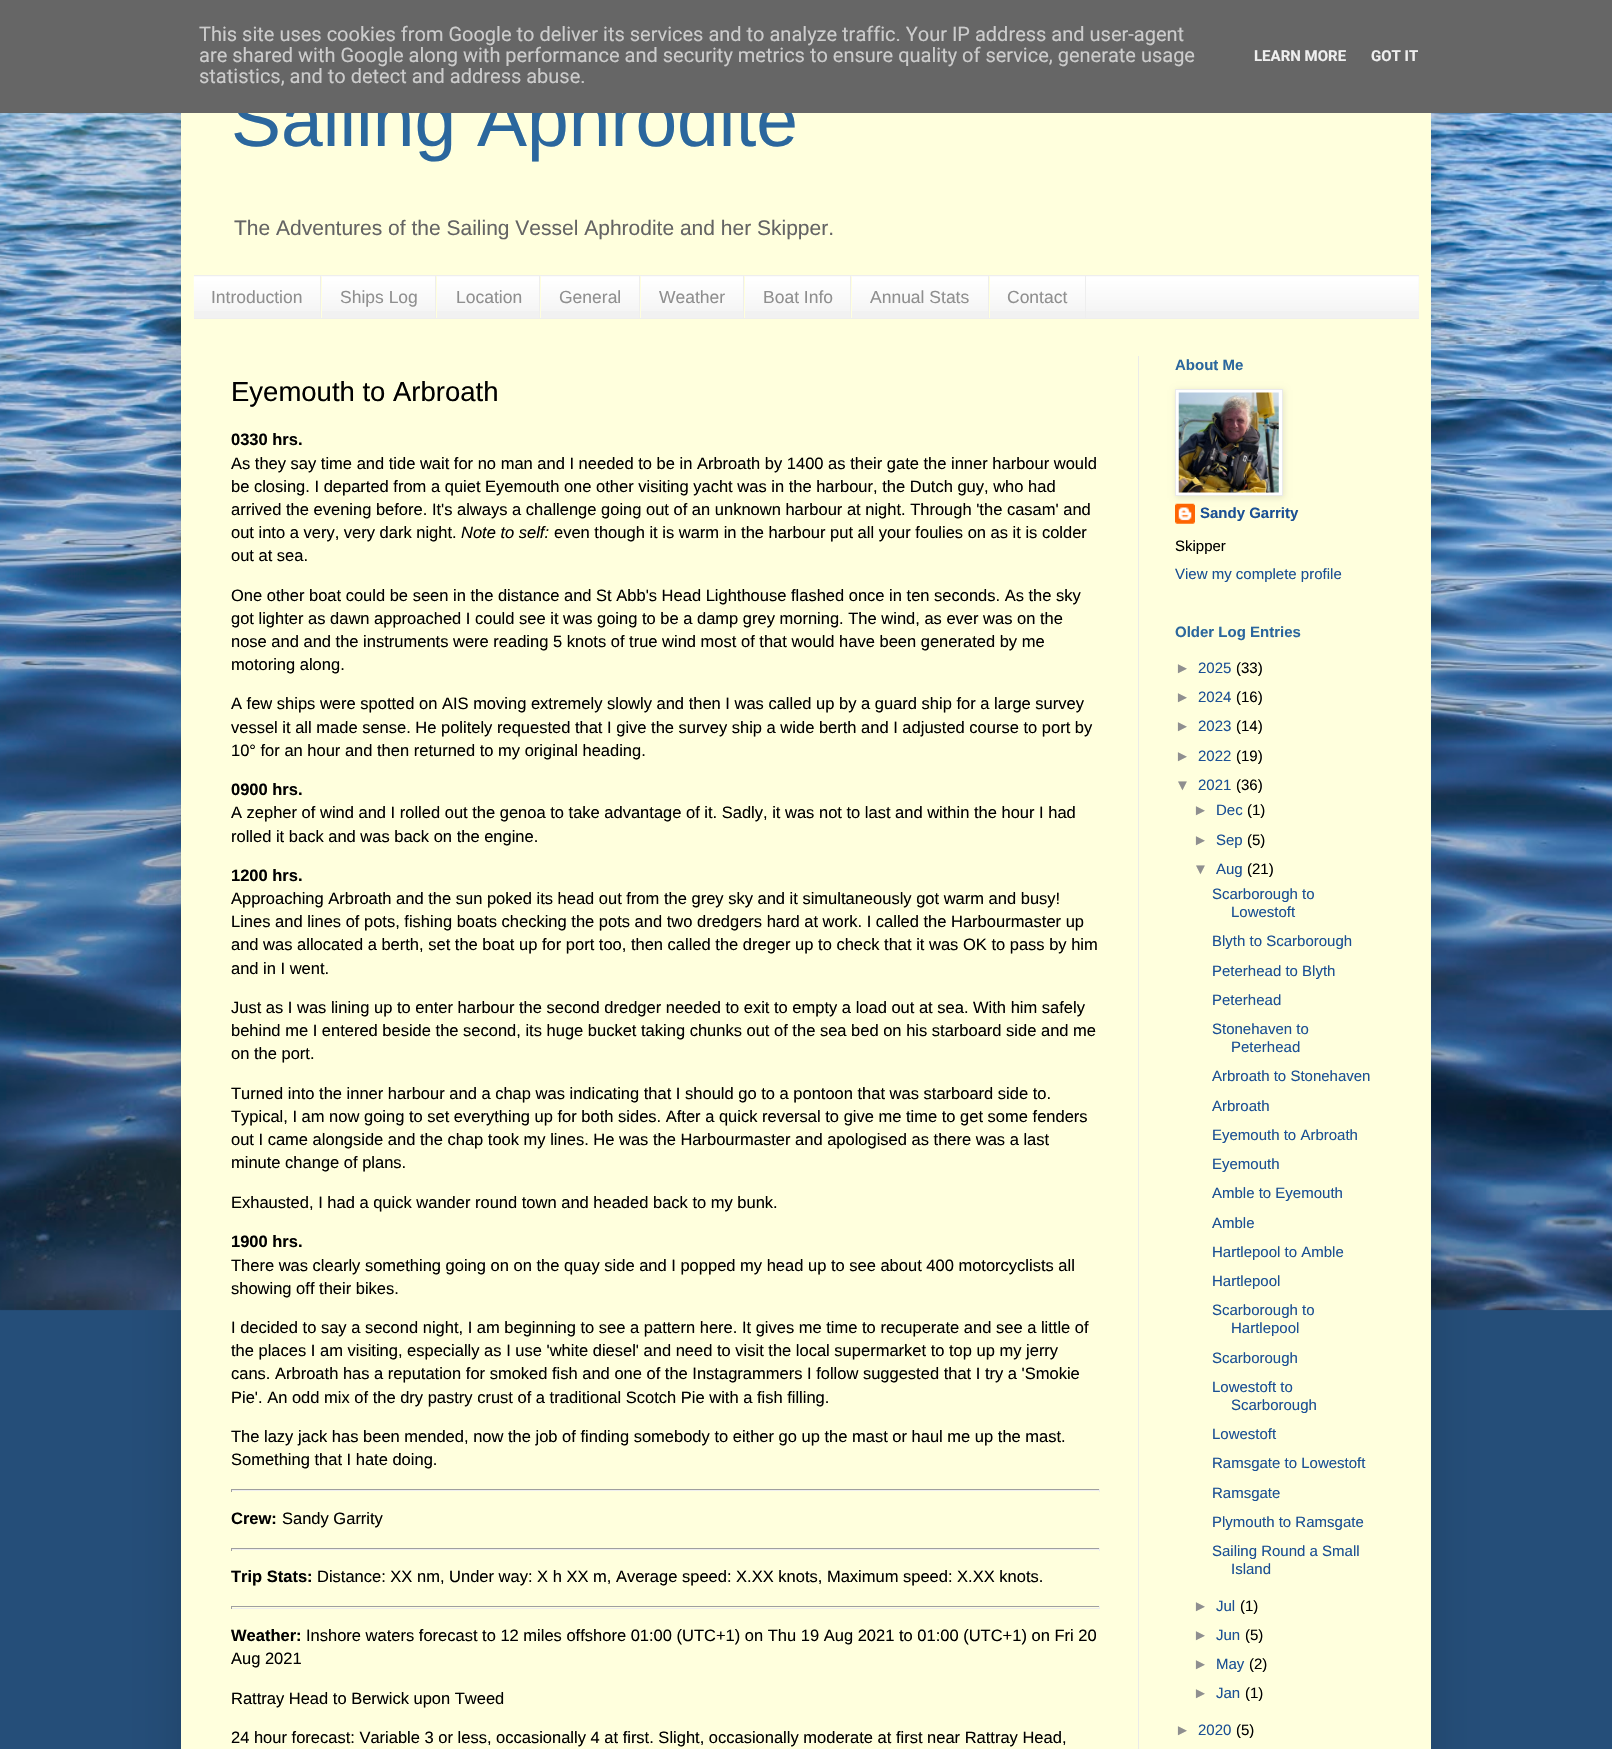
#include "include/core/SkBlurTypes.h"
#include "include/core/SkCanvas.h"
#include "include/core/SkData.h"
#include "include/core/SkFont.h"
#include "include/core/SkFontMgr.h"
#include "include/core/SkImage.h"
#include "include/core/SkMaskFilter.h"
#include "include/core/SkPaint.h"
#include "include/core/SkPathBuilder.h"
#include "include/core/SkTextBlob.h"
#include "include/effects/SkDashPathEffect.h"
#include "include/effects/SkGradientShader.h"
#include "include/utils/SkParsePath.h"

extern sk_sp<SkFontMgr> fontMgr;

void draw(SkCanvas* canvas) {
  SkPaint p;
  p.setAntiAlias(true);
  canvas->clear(SkColorSetRGB(37, 78, 121));
  canvas->drawImageRect(SkImages::DeferredFromEncodedData(SkData::MakeFromFileName("images/1.png")), SkRect::MakeLTRB(0, 113, 1612, 1311), SkSamplingOptions());
  p.setColor(SkColorSetARGB(38, 0, 0, 0));
  p.setMaskFilter(SkMaskFilter::MakeBlur(kNormal_SkBlurStyle, 25));
  canvas->drawRect(SkRect::MakeLTRB(181, 38, 1431, 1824), p);
  p.setMaskFilter(nullptr);
  p.setColor(SkColorSetRGB(255, 255, 221));
  canvas->drawRect(SkRect::MakeLTRB(181, 113, 1431, 1749), p);
  p.setColor(SkColorSetRGB(241, 241, 241));
  canvas->drawRect(SkRect::MakeLTRB(194, 276, 1419, 318), p);
  canvas->drawImageRect(SkImages::DeferredFromEncodedData(SkData::MakeFromFileName("images/2.png")), SkRect::MakeLTRB(193, 276, 1419, 311), SkSamplingOptions());
  p.setColor(SkColorSetRGB(238, 238, 238));
  canvas->drawRect(SkRect::MakeLTRB(194, 275, 1419, 276), p);
  canvas->drawRect(SkRect::MakeLTRB(194, 318, 1419, 319), p);
  canvas->drawRect(SkRect::MakeLTRB(320, 276, 321, 318), p);
  canvas->drawRect(SkRect::MakeLTRB(435, 276, 436, 318), p);
  p.setColor(SkColorSetRGB(255, 255, 221));
  canvas->drawRect(SkRect::MakeLTRB(321, 276, 322, 318), p);
  p.setColor(SkColorSetRGB(238, 238, 238));
  canvas->drawRect(SkRect::MakeLTRB(539, 276, 540, 318), p);
  p.setColor(SkColorSetRGB(255, 255, 221));
  canvas->drawRect(SkRect::MakeLTRB(436, 276, 437, 318), p);
  p.setColor(SkColorSetRGB(238, 238, 238));
  canvas->drawRect(SkRect::MakeLTRB(639, 276, 640, 318), p);
  p.setColor(SkColorSetRGB(255, 255, 221));
  canvas->drawRect(SkRect::MakeLTRB(540, 276, 541, 318), p);
  p.setColor(SkColorSetRGB(238, 238, 238));
  canvas->drawRect(SkRect::MakeLTRB(743, 276, 744, 318), p);
  p.setColor(SkColorSetRGB(255, 255, 221));
  canvas->drawRect(SkRect::MakeLTRB(640, 276, 641, 318), p);
  p.setColor(SkColorSetRGB(238, 238, 238));
  canvas->drawRect(SkRect::MakeLTRB(850, 276, 851, 318), p);
  p.setColor(SkColorSetRGB(255, 255, 221));
  canvas->drawRect(SkRect::MakeLTRB(744, 276, 745, 318), p);
  p.setColor(SkColorSetRGB(238, 238, 238));
  canvas->drawRect(SkRect::MakeLTRB(988, 276, 989, 318), p);
  p.setColor(SkColorSetRGB(255, 255, 221));
  canvas->drawRect(SkRect::MakeLTRB(851, 276, 852, 318), p);
  p.setColor(SkColorSetRGB(238, 238, 238));
  canvas->drawRect(SkRect::MakeLTRB(1085, 276, 1086, 318), p);
  p.setColor(SkColorSetRGB(255, 255, 221));
  canvas->drawRect(SkRect::MakeLTRB(989, 276, 990, 318), p);
  p.setColor(SkColorSetRGB(234, 234, 234));
  canvas->drawRect(SkRect::MakeLTRB(1138, 356, 1139, 1749), p);
  p.setColor(SkColorSetRGB(159, 159, 159));
  canvas->drawRect(SkRect::MakeLTRB(231, 1489, 1100, 1490), p);
  p.setColor(SkColorSetRGB(238, 238, 238));
  canvas->drawRect(SkRect::MakeLTRB(1099, 1489, 1100, 1492), p);
  canvas->drawRect(SkRect::MakeLTRB(231, 1490, 1100, 1491), p);
  p.setColor(SkColorSetRGB(159, 159, 159));
  canvas->drawRect(SkRect::MakeLTRB(231, 1489, 232, 1492), p);
  canvas->drawRect(SkRect::MakeLTRB(231, 1548, 1100, 1549), p);
  p.setColor(SkColorSetRGB(238, 238, 238));
  canvas->drawRect(SkRect::MakeLTRB(1099, 1548, 1100, 1551), p);
  canvas->drawRect(SkRect::MakeLTRB(231, 1549, 1100, 1550), p);
  p.setColor(SkColorSetRGB(159, 159, 159));
  canvas->drawRect(SkRect::MakeLTRB(231, 1548, 232, 1551), p);
  canvas->drawRect(SkRect::MakeLTRB(231, 1606, 1100, 1607), p);
  p.setColor(SkColorSetRGB(238, 238, 238));
  canvas->drawRect(SkRect::MakeLTRB(1099, 1606, 1100, 1609), p);
  canvas->drawRect(SkRect::MakeLTRB(231, 1608, 1100, 1609), p);
  p.setColor(SkColorSetRGB(159, 159, 159));
  canvas->drawRect(SkRect::MakeLTRB(231, 1606, 232, 1609), p);
  canvas->drawImageRect(SkImages::DeferredFromEncodedData(SkData::MakeFromFileName("images/4.png")), SkRect::MakeLTRB(1175, 503, 1195, 524), SkSamplingOptions());
  p.setColor(SkColorSetARGB(26, 0, 0, 0));
  p.setMaskFilter(SkMaskFilter::MakeBlur(kNormal_SkBlurStyle, 3));
  canvas->drawRect(SkRect::MakeLTRB(1176, 390, 1284, 498), p);
  p.setMaskFilter(nullptr);
  p.setColor(SK_ColorWHITE);
  canvas->drawRect(SkRect::MakeLTRB(1175.5f, 389.5f, 1282.5f, 495.5f), p);
  p.setStyle(SkPaint::kStroke_Style);
  p.setStrokeWidth(1);
  p.setColor(SkColorSetRGB(234, 234, 234));
  canvas->drawRect(SkRect::MakeLTRB(1175.5f, 389.5f, 1282.5f, 495.5f), p);
  canvas->drawImageRect(SkImages::DeferredFromEncodedData(SkData::MakeFromFileName("images/3.png")), SkRect::MakeLTRB(1178, 392, 1279, 493), SkSamplingOptions());
  SkFont font1(fontMgr->matchFamilyStyle("Liberation Sans", SkFontStyle::Normal()), 75);
  font1.setSubpixel(true);
  p.setStyle(SkPaint::kFill_Style);
  p.setColor(SkColorSetRGB(43, 103, 157));
  canvas->drawString("Sailing Aphrodite", 231, 146, font1, p);
  p.setColor(SkColorSetRGB(102, 102, 102));
  canvas->drawRect(SkRect::MakeLTRB(0, 0, 1612, 113), p);
  SkFont font2(fontMgr->matchFamilyStyle("Roboto", SkFontStyle::Bold()), 15);
  font2.setSubpixel(true);
  p.setColor(SkColorSetRGB(238, 238, 238));
  canvas->drawString("GOT IT", 1371, 61, font2, p);
  canvas->drawString("LEARN MORE", 1254, 61, font2, p);
  SkFont font3(fontMgr->matchFamilyStyle("Roboto", SkFontStyle::Normal()), 20);
  font3.setSubpixel(true);
  p.setColor(SkColorSetRGB(204, 204, 204));
  canvas->drawString("statistics, and to detect and address abuse.", 199, 83, font3, p);
  canvas->drawString("are shared with Google along with performance and security metrics to ensure quality of service, generate usage", 199, 62, font3, p);
  canvas->drawString("This site uses cookies from Google to deliver its services and to analyze traffic. Your IP address and user-agent", 199, 41, font3, p);
  SkFont font4(fontMgr->matchFamilyStyle("Liberation Sans", SkFontStyle::Normal()), 21);
  font4.setSubpixel(true);
  p.setColor(SkColorSetRGB(100, 100, 100));
  canvas->drawString("The Adventures of the Sailing Vessel Aphrodite and her Skipper.", 234, 235, font4, p);
  SkFont font5(fontMgr->matchFamilyStyle("Liberation Sans", SkFontStyle::Normal()), 17.5f);
  font5.setSubpixel(true);
  p.setColor(SkColorSetRGB(143, 143, 143));
  canvas->drawString("Introduction", 211, 303, font5, p);
  canvas->drawString("Ships Log", 340, 303, font5, p);
  canvas->drawString("Location", 456, 303, font5, p);
  canvas->drawString("General", 559, 303, font5, p);
  canvas->drawString("Weather", 659, 303, font5, p);
  canvas->drawString("Boat Info", 763, 303, font5, p);
  canvas->drawString("Annual Stats", 870, 303, font5, p);
  canvas->drawString("Contact", 1007, 303, font5, p);
  SkFont font6(fontMgr->matchFamilyStyle("Liberation Sans", SkFontStyle::Normal()), 27.5f);
  font6.setSubpixel(true);
  p.setColor(SK_ColorBLACK);
  canvas->drawString("Eyemouth to Arbroath", 231, 401, font6, p);
  SkFont font7(fontMgr->matchFamilyStyle("Liberation Sans", SkFontStyle::Bold()), 16.5f);
  font7.setSubpixel(true);
  canvas->drawString("0330 hrs.", 231, 445, font7, p);
  SkFont font8(fontMgr->matchFamilyStyle("Liberation Sans", SkFontStyle::Normal()), 16.5f);
  font8.setSubpixel(true);
  canvas->drawString("As they say time and tide wait for no man and I needed to be in Arbroath by 1400 as their gate the inner harbour would", 231, 469, font8, p);
  canvas->drawString("be closing. I departed from a quiet Eyemouth one other visiting yacht was in the harbour, the Dutch guy, who had", 231, 492, font8, p);
  canvas->drawString("arrived the evening before. It's always a challenge going out of an unknown harbour at night. Through 'the casam' and", 231, 515, font8, p);
  canvas->drawString("out into a very, very dark night.", 231, 538, font8, p);
  SkFont font9(fontMgr->matchFamilyStyle("Liberation Sans", SkFontStyle::Italic()), 16.5f);
  font9.setSubpixel(true);
  canvas->drawString("Note to self:", 461, 538, font9, p);
  canvas->drawString("even though it is warm in the harbour put all your foulies on as it is colder", 554, 538, font8, p);
  canvas->drawString("out at sea.", 231, 561, font8, p);
  canvas->drawString("One other boat could be seen in the distance and St Abb's Head Lighthouse flashed once in ten seconds. As the sky", 231, 601, font8, p);
  canvas->drawString("got lighter as dawn approached I could see it was going to be a damp grey morning. The wind, as ever was on the", 231, 624, font8, p);
  canvas->drawString("nose and and the instruments were reading 5 knots of true wind most of that would have been generated by me", 231, 647, font8, p);
  canvas->drawString("motoring along.", 231, 670, font8, p);
  canvas->drawString("A few ships were spotted on AIS moving extremely slowly and then I was called up by a guard ship for a large survey", 231, 709, font8, p);
  canvas->drawString("vessel it all made sense. He politely requested that I give the survey ship a wide berth and I adjusted course to port by", 231, 733, font8, p);
  canvas->drawString("10° for an hour and then returned to my original heading.", 231, 756, font8, p);
  canvas->drawString("0900 hrs.", 231, 795, font7, p);
  canvas->drawString("A zepher of wind and I rolled out the genoa to take advantage of it. Sadly, it was not to last and within the hour I had", 231, 818, font8, p);
  canvas->drawString("rolled it back and was back on the engine.", 231, 842, font8, p);
  canvas->drawString("1200 hrs.", 231, 881, font7, p);
  canvas->drawString("Approaching Arbroath and the sun poked its head out from the grey sky and it simultaneously got warm and busy!", 231, 904, font8, p);
  canvas->drawString("Lines and lines of pots, fishing boats checking the pots and two dredgers hard at work. I called the Harbourmaster up", 231, 927, font8, p);
  canvas->drawString("and was allocated a berth, set the boat up for port too, then called the dreger up to check that it was OK to pass by him", 231, 950, font8, p);
  canvas->drawString("and in I went.", 231, 974, font8, p);
  canvas->drawString("Just as I was lining up to enter harbour the second dredger needed to exit to empty a load out at sea. With him safely", 231, 1013, font8, p);
  canvas->drawString("behind me I entered beside the second, its huge bucket taking chunks out of the sea bed on his starboard side and me", 231, 1036, font8, p);
  canvas->drawString("on the port.", 231, 1059, font8, p);
  canvas->drawString("Turned into the inner harbour and a chap was indicating that I should go to a pontoon that was starboard side to.", 231, 1099, font8, p);
  canvas->drawString("Typical, I am now going to set everything up for both sides. After a quick reversal to give me time to get some fenders", 231, 1122, font8, p);
  canvas->drawString("out I came alongside and the chap took my lines. He was the Harbourmaster and apologised as there was a last", 231, 1145, font8, p);
  canvas->drawString("minute change of plans.", 231, 1168, font8, p);
  canvas->drawString("Exhausted, I had a quick wander round town and headed back to my bunk.", 231, 1208, font8, p);
  canvas->drawString("1900 hrs.", 231, 1247, font7, p);
  canvas->drawString("There was clearly something going on on the quay side and I popped my head up to see about 400 motorcyclists all", 231, 1271, font8, p);
  canvas->drawString("showing off their bikes.", 231, 1294, font8, p);
  canvas->drawString("I decided to say a second night, I am beginning to see a pattern here. It gives me time to recuperate and see a little of", 231, 1333, font8, p);
  canvas->drawString("the places I am visiting, especially as I use 'white diesel' and need to visit the local supermarket to top up my jerry", 231, 1356, font8, p);
  canvas->drawString("cans. Arbroath has a reputation for smoked fish and one of the Instagrammers I follow suggested that I try a 'Smokie", 231, 1379, font8, p);
  canvas->drawString("Pie'. An odd mix of the dry pastry crust of a traditional Scotch Pie with a fish filling.", 231, 1403, font8, p);
  canvas->drawString("The lazy jack has been mended, now the job of finding somebody to either go up the mast or haul me up the mast.", 231, 1442, font8, p);
  canvas->drawString("Something that I hate doing.", 231, 1465, font8, p);
  canvas->drawString("Crew:", 231, 1524, font7, p);
  canvas->drawString("Sandy Garrity", 282, 1524, font8, p);
  canvas->drawString("Trip Stats:", 231, 1582, font7, p);
  canvas->drawString("Distance: XX nm, Under way: X h XX m, Average speed: X.XX knots, Maximum speed: X.XX knots.", 317, 1582, font8, p);
  canvas->drawString("Weather:", 231, 1641, font7, p);
  canvas->drawString("Inshore waters forecast to 12 miles offshore 01:00 (UTC+1) on Thu 19 Aug 2021 to 01:00 (UTC+1) on Fri 20", 306, 1641, font8, p);
  canvas->drawString("Aug 2021", 231, 1664, font8, p);
  canvas->drawString("Rattray Head to Berwick upon Tweed", 231, 1704, font8, p);
  canvas->drawString("24 hour forecast: Variable 3 or less, occasionally 4 at first. Slight, occasionally moderate at first near Rattray Head,", 231, 1743, font8, p);
  SkFont font10(fontMgr->matchFamilyStyle("Liberation Sans", SkFontStyle::Bold()), 15);
  font10.setSubpixel(true);
  p.setColor(SkColorSetRGB(43, 103, 157));
  canvas->drawString("About Me", 1175, 370, font10, p);
  p.setColor(SkColorSetRGB(27, 80, 148));
  canvas->drawString("Sandy Garrity", 1200, 518, font10, p);
  SkFont font11(fontMgr->matchFamilyStyle("Liberation Sans", SkFontStyle::Normal()), 15);
  font11.setSubpixel(true);
  p.setColor(SK_ColorBLACK);
  canvas->drawString("Skipper", 1175, 551, font11, p);
  p.setColor(SkColorSetRGB(27, 80, 148));
  canvas->drawString("View my complete profile", 1175, 579, font11, p);
  p.setColor(SkColorSetRGB(43, 103, 157));
  canvas->drawString("Older Log Entries", 1175, 637, font10, p);
  p.setColor(SkColorSetRGB(143, 143, 143));
  canvas->drawString("►", 1175, 673, font11, p);
  p.setColor(SkColorSetRGB(27, 80, 148));
  canvas->drawString("2025", 1198, 673, font11, p);
  p.setColor(SK_ColorBLACK);
  canvas->drawString("(33)", 1236, 673, font11, p);
  p.setColor(SkColorSetRGB(143, 143, 143));
  canvas->drawString("►", 1175, 702, font11, p);
  p.setColor(SkColorSetRGB(27, 80, 148));
  canvas->drawString("2024", 1198, 702, font11, p);
  p.setColor(SK_ColorBLACK);
  canvas->drawString("(16)", 1236, 702, font11, p);
  p.setColor(SkColorSetRGB(143, 143, 143));
  canvas->drawString("►", 1175, 731, font11, p);
  p.setColor(SkColorSetRGB(27, 80, 148));
  canvas->drawString("2023", 1198, 731, font11, p);
  p.setColor(SK_ColorBLACK);
  canvas->drawString("(14)", 1236, 731, font11, p);
  p.setColor(SkColorSetRGB(143, 143, 143));
  canvas->drawString("►", 1175, 761, font11, p);
  p.setColor(SkColorSetRGB(27, 80, 148));
  canvas->drawString("2022", 1198, 761, font11, p);
  p.setColor(SK_ColorBLACK);
  canvas->drawString("(19)", 1236, 761, font11, p);
  p.setColor(SkColorSetRGB(143, 143, 143));
  canvas->drawString("▼", 1175, 790, font11, p);
  p.setColor(SkColorSetRGB(27, 80, 148));
  canvas->drawString("2021", 1198, 790, font11, p);
  p.setColor(SK_ColorBLACK);
  canvas->drawString("(36)", 1236, 790, font11, p);
  p.setColor(SkColorSetRGB(143, 143, 143));
  canvas->drawString("►", 1193, 815, font11, p);
  p.setColor(SkColorSetRGB(27, 80, 148));
  canvas->drawString("Dec", 1216, 815, font11, p);
  p.setColor(SK_ColorBLACK);
  canvas->drawString("(1)", 1247, 815, font11, p);
  p.setColor(SkColorSetRGB(143, 143, 143));
  canvas->drawString("►", 1193, 845, font11, p);
  p.setColor(SkColorSetRGB(27, 80, 148));
  canvas->drawString("Sep", 1216, 845, font11, p);
  p.setColor(SK_ColorBLACK);
  canvas->drawString("(5)", 1247, 845, font11, p);
  p.setColor(SkColorSetRGB(143, 143, 143));
  canvas->drawString("▼", 1193, 874, font11, p);
  p.setColor(SkColorSetRGB(27, 80, 148));
  canvas->drawString("Aug", 1216, 874, font11, p);
  p.setColor(SK_ColorBLACK);
  canvas->drawString("(21)", 1247, 874, font11, p);
  p.setColor(SkColorSetRGB(27, 80, 148));
  canvas->drawString("Scarborough to", 1212, 899, font11, p);
  canvas->drawString("Lowestoft", 1231, 917, font11, p);
  canvas->drawString("Blyth to Scarborough", 1212, 946, font11, p);
  canvas->drawString("Peterhead to Blyth", 1212, 976, font11, p);
  canvas->drawString("Peterhead", 1212, 1005, font11, p);
  canvas->drawString("Stonehaven to", 1212, 1034, font11, p);
  canvas->drawString("Peterhead", 1231, 1052, font11, p);
  canvas->drawString("Arbroath to Stonehaven", 1212, 1081, font11, p);
  canvas->drawString("Arbroath", 1212, 1111, font11, p);
  canvas->drawString("Eyemouth to Arbroath", 1212, 1140, font11, p);
  canvas->drawString("Eyemouth", 1212, 1169, font11, p);
  canvas->drawString("Amble to Eyemouth", 1212, 1198, font11, p);
  canvas->drawString("Amble", 1212, 1228, font11, p);
  canvas->drawString("Hartlepool to Amble", 1212, 1257, font11, p);
  canvas->drawString("Hartlepool", 1212, 1286, font11, p);
  canvas->drawString("Scarborough to", 1212, 1315, font11, p);
  canvas->drawString("Hartlepool", 1231, 1333, font11, p);
  canvas->drawString("Scarborough", 1212, 1363, font11, p);
  canvas->drawString("Lowestoft to", 1212, 1392, font11, p);
  canvas->drawString("Scarborough", 1231, 1410, font11, p);
  canvas->drawString("Lowestoft", 1212, 1439, font11, p);
  canvas->drawString("Ramsgate to Lowestoft", 1212, 1468, font11, p);
  canvas->drawString("Ramsgate", 1212, 1498, font11, p);
  canvas->drawString("Plymouth to Ramsgate", 1212, 1527, font11, p);
  canvas->drawString("Sailing Round a Small", 1212, 1556, font11, p);
  canvas->drawString("Island", 1231, 1574, font11, p);
  p.setColor(SkColorSetRGB(143, 143, 143));
  canvas->drawString("►", 1193, 1611, font11, p);
  p.setColor(SkColorSetRGB(27, 80, 148));
  canvas->drawString("Jul", 1216, 1611, font11, p);
  p.setColor(SK_ColorBLACK);
  canvas->drawString("(1)", 1240, 1611, font11, p);
  p.setColor(SkColorSetRGB(143, 143, 143));
  canvas->drawString("►", 1193, 1640, font11, p);
  p.setColor(SkColorSetRGB(27, 80, 148));
  canvas->drawString("Jun", 1216, 1640, font11, p);
  p.setColor(SK_ColorBLACK);
  canvas->drawString("(5)", 1245, 1640, font11, p);
  p.setColor(SkColorSetRGB(143, 143, 143));
  canvas->drawString("►", 1193, 1669, font11, p);
  p.setColor(SkColorSetRGB(27, 80, 148));
  canvas->drawString("May", 1216, 1669, font11, p);
  p.setColor(SK_ColorBLACK);
  canvas->drawString("(2)", 1249, 1669, font11, p);
  p.setColor(SkColorSetRGB(143, 143, 143));
  canvas->drawString("►", 1193, 1698, font11, p);
  p.setColor(SkColorSetRGB(27, 80, 148));
  canvas->drawString("Jan", 1216, 1698, font11, p);
  p.setColor(SK_ColorBLACK);
  canvas->drawString("(1)", 1245, 1698, font11, p);
  p.setColor(SkColorSetRGB(143, 143, 143));
  canvas->drawString("►", 1175, 1735, font11, p);
  p.setColor(SkColorSetRGB(27, 80, 148));
  canvas->drawString("2020", 1198, 1735, font11, p);
  p.setColor(SK_ColorBLACK);
  canvas->drawString("(5)", 1236, 1735, font11, p);
}
